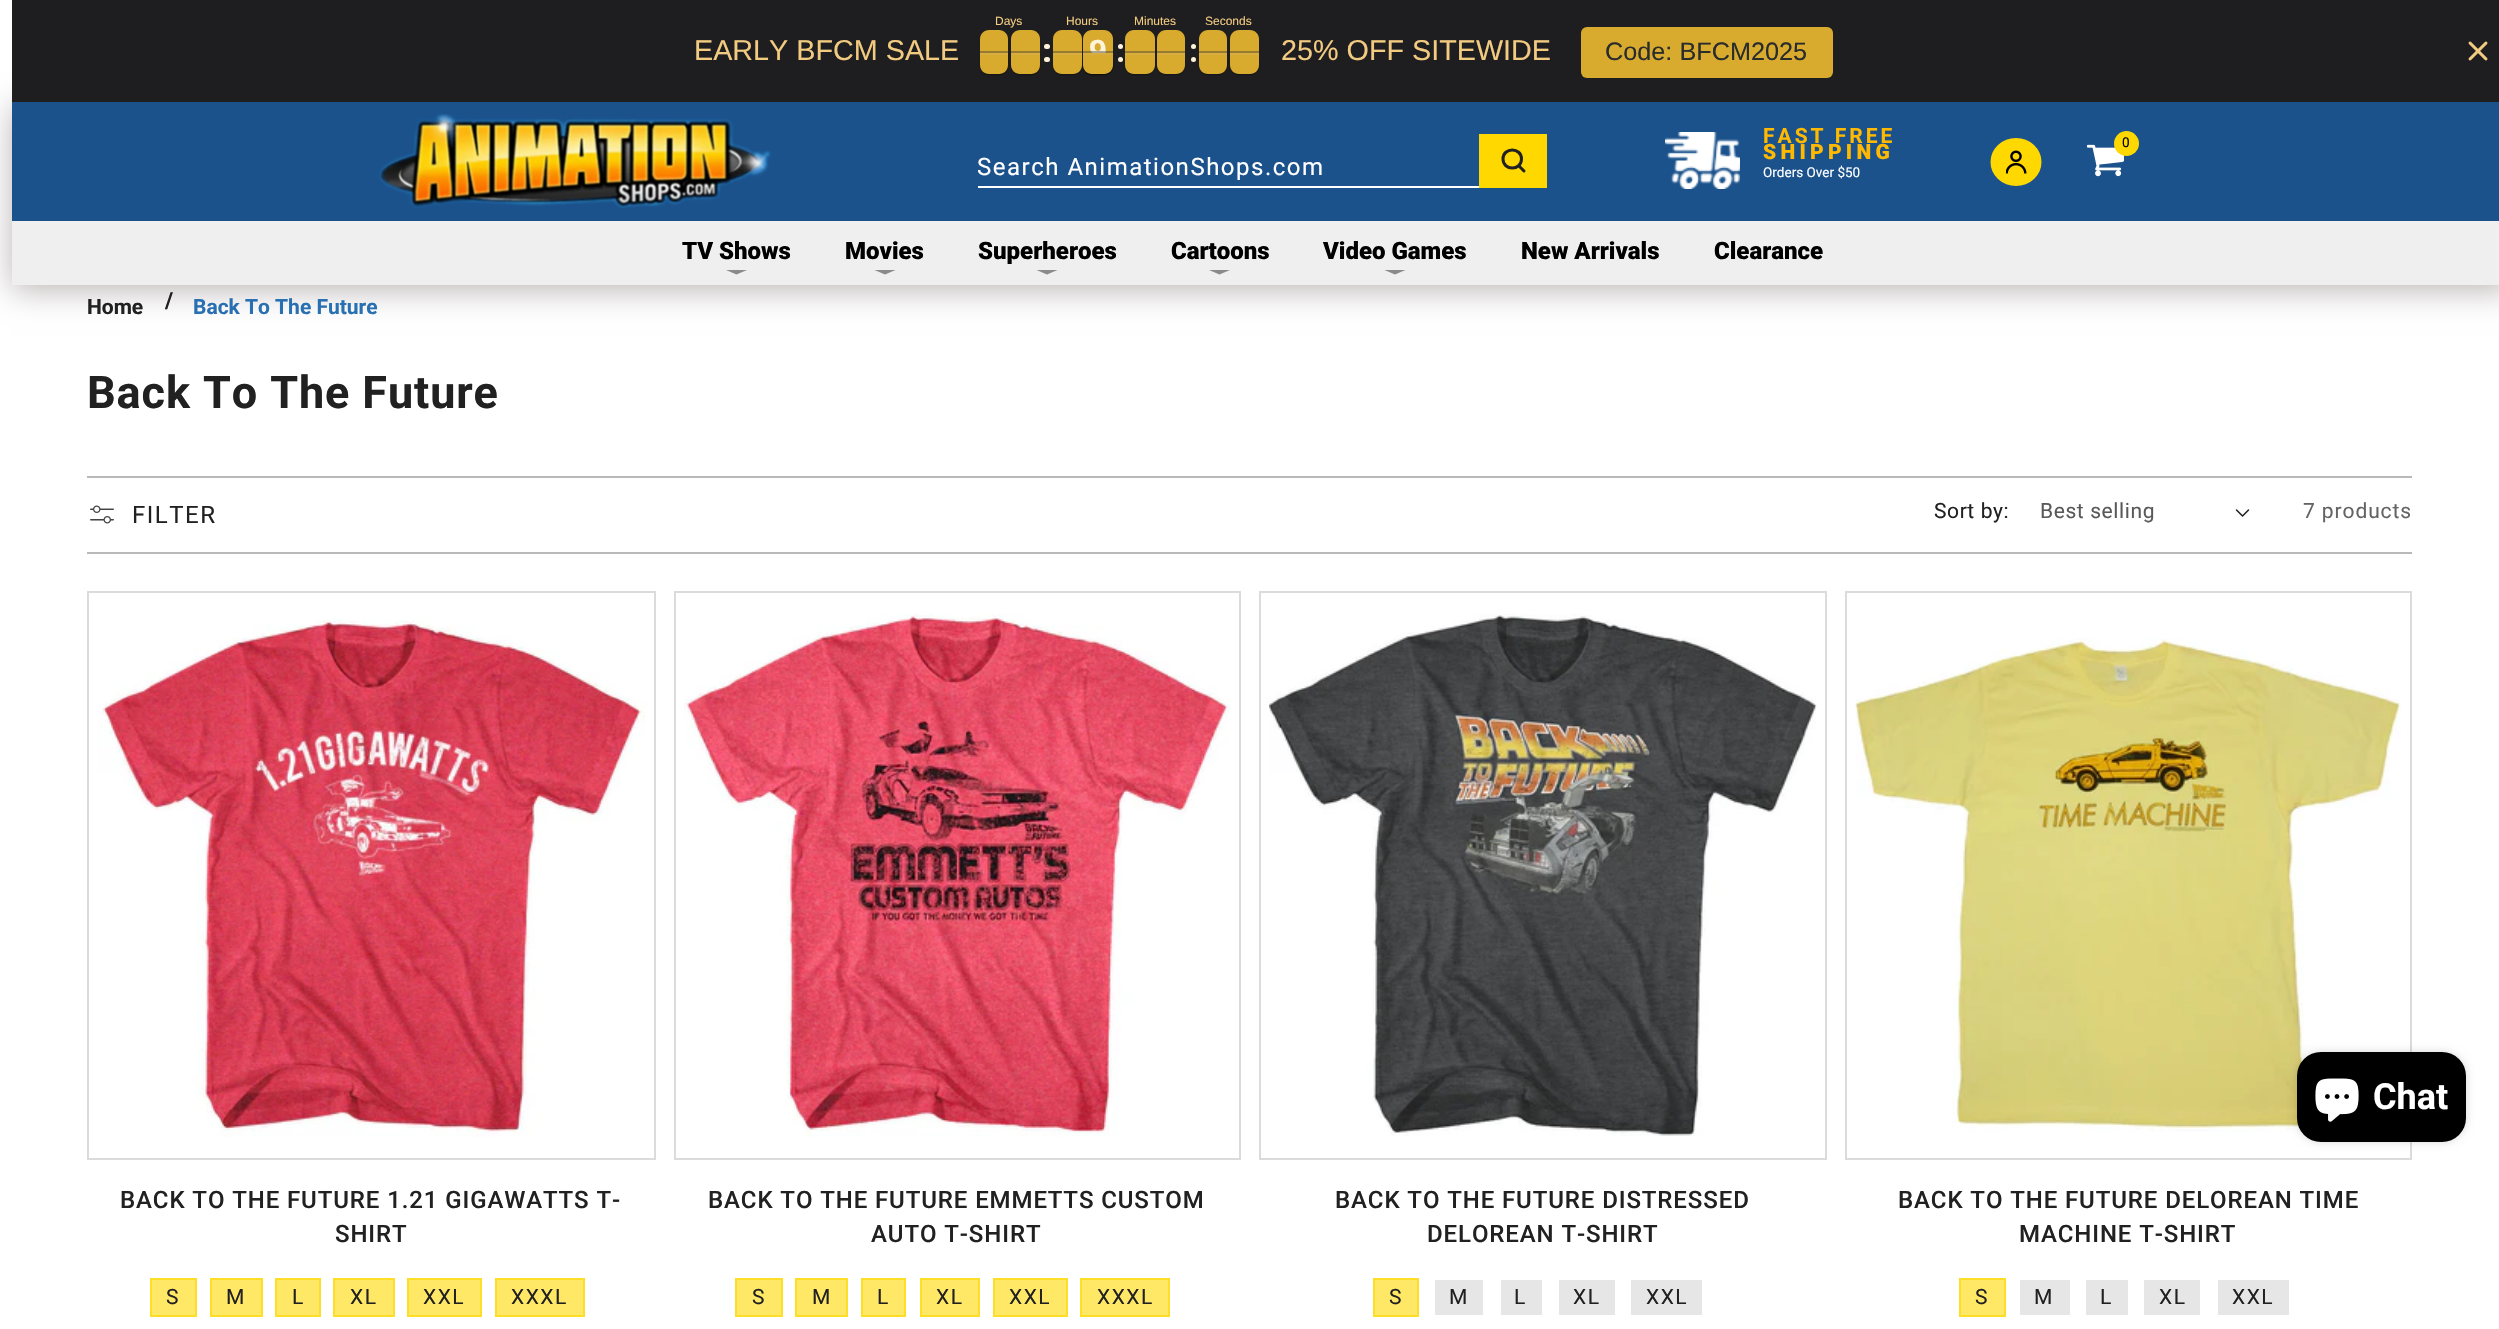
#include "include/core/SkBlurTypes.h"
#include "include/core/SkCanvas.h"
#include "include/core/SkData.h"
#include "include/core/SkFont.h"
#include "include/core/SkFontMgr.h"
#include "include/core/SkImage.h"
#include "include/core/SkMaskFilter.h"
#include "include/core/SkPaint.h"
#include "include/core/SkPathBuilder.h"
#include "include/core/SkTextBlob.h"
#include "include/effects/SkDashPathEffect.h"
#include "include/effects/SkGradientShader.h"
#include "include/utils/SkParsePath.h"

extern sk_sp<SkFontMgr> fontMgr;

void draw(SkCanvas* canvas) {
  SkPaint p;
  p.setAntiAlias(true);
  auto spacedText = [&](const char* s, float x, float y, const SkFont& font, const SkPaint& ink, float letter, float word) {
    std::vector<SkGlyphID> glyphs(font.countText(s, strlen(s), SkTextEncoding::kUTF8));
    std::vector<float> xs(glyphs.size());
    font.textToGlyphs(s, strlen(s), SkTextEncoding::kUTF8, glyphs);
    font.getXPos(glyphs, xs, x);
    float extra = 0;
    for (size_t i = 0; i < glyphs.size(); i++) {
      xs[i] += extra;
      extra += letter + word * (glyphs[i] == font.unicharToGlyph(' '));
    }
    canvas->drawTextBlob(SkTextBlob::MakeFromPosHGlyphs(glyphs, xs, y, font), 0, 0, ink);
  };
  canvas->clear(SK_ColorWHITE);
  p.setColor(SkColorSetRGB(187, 181, 181));
  p.setMaskFilter(SkMaskFilter::MakeBlur(kNormal_SkBlurStyle, 15));
  canvas->drawRect(SkRect::MakeLTRB(12, 107, 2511, 290), p);
  p.setMaskFilter(nullptr);
  p.setColor(SkColorSetRGB(30, 30, 32));
  canvas->drawRect(SkRect::MakeLTRB(12, 0, 2499, 102), p);
  p.setColor(SkColorSetARGB(102, 0, 0, 0));
  p.setMaskFilter(SkMaskFilter::MakeBlur(kNormal_SkBlurStyle, 1));
  canvas->drawRoundRect(SkRect::MakeLTRB(980, 54, 1008, 75), 9, 9, p);
  p.setMaskFilter(nullptr);
  p.setMaskFilter(SkMaskFilter::MakeBlur(kNormal_SkBlurStyle, 1));
  canvas->drawRoundRect(SkRect::MakeLTRB(1011, 54, 1040, 75), 9, 9, p);
  p.setMaskFilter(nullptr);
  p.setColor(SkColorSetRGB(216, 171, 46));
  canvas->drawPath(SkPathBuilder().moveTo(989, 30).lineTo(999, 30).cubicTo(1004, 30, 1008, 34, 1008, 39).lineTo(1008, 53).lineTo(980, 53).lineTo(980, 39).cubicTo(980, 34, 984, 30, 989, 30).close().detach(), p);
  p.setColor(SkColorSetARGB(102, 51, 51, 51));
  canvas->drawRect(SkRect::MakeLTRB(980, 51, 1008, 53), p);
  p.setColor(SkColorSetRGB(216, 171, 46));
  canvas->drawPath(SkPathBuilder().moveTo(980, 53).lineTo(1008, 53).lineTo(1008, 65).cubicTo(1008, 70, 1004, 74, 999, 74).lineTo(989, 74).cubicTo(984, 74, 980, 70, 980, 65).close().detach(), p);
  p.setColor(SkColorSetARGB(26, 204, 204, 204));
  canvas->drawRect(SkRect::MakeLTRB(980, 53, 1008, 55), p);
  p.setColor(SkColorSetRGB(216, 171, 46));
  canvas->drawPath(SkPathBuilder().moveTo(1020, 30).lineTo(1031, 30).cubicTo(1036, 30, 1040, 34, 1040, 39).lineTo(1040, 53).lineTo(1011, 53).lineTo(1011, 39).cubicTo(1011, 34, 1015, 30, 1020, 30).close().detach(), p);
  p.setColor(SkColorSetARGB(102, 51, 51, 51));
  canvas->drawRect(SkRect::MakeLTRB(1011, 51, 1040, 53), p);
  p.setColor(SkColorSetRGB(216, 171, 46));
  canvas->drawPath(SkPathBuilder().moveTo(1011, 53).lineTo(1040, 53).lineTo(1040, 65).cubicTo(1040, 70, 1036, 74, 1031, 74).lineTo(1020, 74).cubicTo(1015, 74, 1011, 70, 1011, 65).close().detach(), p);
  p.setColor(SkColorSetARGB(26, 204, 204, 204));
  canvas->drawRect(SkRect::MakeLTRB(1011, 53, 1040, 55), p);
  p.setColor(SkColorSetRGB(255, 243, 217));
  canvas->drawRoundRect(SkRect::MakeLTRB(1044, 57, 1050, 62), 2.5f, 2.5f, p);
  p.setColor(SkColorSetARGB(102, 0, 0, 0));
  p.setMaskFilter(SkMaskFilter::MakeBlur(kNormal_SkBlurStyle, 1));
  canvas->drawRoundRect(SkRect::MakeLTRB(1053, 54, 1082, 75), 9, 9, p);
  p.setMaskFilter(nullptr);
  p.setMaskFilter(SkMaskFilter::MakeBlur(kNormal_SkBlurStyle, 1));
  canvas->drawRoundRect(SkRect::MakeLTRB(1083, 54, 1113, 75), 9, 9, p);
  p.setMaskFilter(nullptr);
  p.setColor(SkColorSetRGB(216, 171, 46));
  canvas->drawPath(SkPathBuilder().moveTo(1062, 30).lineTo(1073, 30).cubicTo(1078, 30, 1082, 34, 1082, 39).lineTo(1082, 53).lineTo(1053, 53).lineTo(1053, 39).cubicTo(1053, 34, 1057, 30, 1062, 30).close().detach(), p);
  p.setColor(SkColorSetARGB(102, 51, 51, 51));
  canvas->drawRect(SkRect::MakeLTRB(1053, 51, 1082, 53), p);
  p.setColor(SkColorSetRGB(216, 171, 46));
  canvas->drawPath(SkPathBuilder().moveTo(1053, 53).lineTo(1082, 53).lineTo(1082, 65).cubicTo(1082, 70, 1078, 74, 1073, 74).lineTo(1062, 74).cubicTo(1057, 74, 1053, 70, 1053, 65).close().detach(), p);
  p.setColor(SkColorSetARGB(26, 204, 204, 204));
  canvas->drawRect(SkRect::MakeLTRB(1053, 53, 1082, 55), p);
  p.setColor(SkColorSetRGB(216, 171, 46));
  canvas->drawPath(SkPathBuilder().moveTo(1092, 30).lineTo(1104, 30).cubicTo(1109, 30, 1113, 34, 1113, 39).lineTo(1113, 53).lineTo(1083, 53).lineTo(1083, 39).cubicTo(1083, 34, 1087, 30, 1092, 30).close().detach(), p);
  p.setColor(SkColorSetRGB(255, 243, 217));
  canvas->drawCircle(1120.5f, 59.5f, 2.5f, p);
  p.setColor(SkColorSetARGB(102, 0, 0, 0));
  p.setMaskFilter(SkMaskFilter::MakeBlur(kNormal_SkBlurStyle, 1));
  canvas->drawRoundRect(SkRect::MakeLTRB(1125, 54, 1155, 75), 9, 9, p);
  p.setMaskFilter(nullptr);
  p.setMaskFilter(SkMaskFilter::MakeBlur(kNormal_SkBlurStyle, 1));
  canvas->drawRoundRect(SkRect::MakeLTRB(1157, 54, 1185, 75), 9, 9, p);
  p.setMaskFilter(nullptr);
  p.setColor(SkColorSetRGB(216, 171, 46));
  canvas->drawPath(SkPathBuilder().moveTo(1134, 30).lineTo(1146, 30).cubicTo(1151, 30, 1155, 34, 1155, 39).lineTo(1155, 53).lineTo(1125, 53).lineTo(1125, 39).cubicTo(1125, 34, 1129, 30, 1134, 30).close().detach(), p);
  p.setColor(SkColorSetARGB(102, 51, 51, 51));
  canvas->drawRect(SkRect::MakeLTRB(1125, 51, 1155, 53), p);
  p.setColor(SkColorSetRGB(216, 171, 46));
  canvas->drawPath(SkPathBuilder().moveTo(1125, 53).lineTo(1155, 53).lineTo(1155, 65).cubicTo(1155, 70, 1151, 74, 1146, 74).lineTo(1134, 74).cubicTo(1129, 74, 1125, 70, 1125, 65).close().detach(), p);
  p.setColor(SkColorSetARGB(26, 204, 204, 204));
  canvas->drawRect(SkRect::MakeLTRB(1125, 53, 1155, 55), p);
  p.setColor(SkColorSetRGB(216, 171, 46));
  canvas->drawPath(SkPathBuilder().moveTo(1166, 30).lineTo(1176, 30).cubicTo(1181, 30, 1185, 34, 1185, 39).lineTo(1185, 53).lineTo(1157, 53).lineTo(1157, 39).cubicTo(1157, 34, 1161, 30, 1166, 30).close().detach(), p);
  p.setColor(SkColorSetARGB(102, 51, 51, 51));
  canvas->drawRect(SkRect::MakeLTRB(1157, 51, 1185, 53), p);
  p.setColor(SkColorSetRGB(216, 171, 46));
  canvas->drawPath(SkPathBuilder().moveTo(1157, 53).lineTo(1185, 53).lineTo(1185, 65).cubicTo(1185, 70, 1181, 74, 1176, 74).lineTo(1166, 74).cubicTo(1161, 74, 1157, 70, 1157, 65).close().detach(), p);
  p.setColor(SkColorSetARGB(26, 204, 204, 204));
  canvas->drawRect(SkRect::MakeLTRB(1157, 53, 1185, 55), p);
  p.setColor(SkColorSetRGB(255, 243, 217));
  canvas->drawCircle(1193.5f, 59.5f, 2.5f, p);
  p.setColor(SkColorSetARGB(102, 0, 0, 0));
  p.setMaskFilter(SkMaskFilter::MakeBlur(kNormal_SkBlurStyle, 1));
  canvas->drawRoundRect(SkRect::MakeLTRB(1199, 54, 1227, 75), 9, 9, p);
  p.setMaskFilter(nullptr);
  p.setMaskFilter(SkMaskFilter::MakeBlur(kNormal_SkBlurStyle, 1));
  canvas->drawRoundRect(SkRect::MakeLTRB(1230, 54, 1259, 75), 9, 9, p);
  p.setMaskFilter(nullptr);
  p.setColor(SkColorSetRGB(216, 171, 46));
  canvas->drawPath(SkPathBuilder().moveTo(1208, 30).lineTo(1218, 30).cubicTo(1223, 30, 1227, 34, 1227, 39).lineTo(1227, 53).lineTo(1199, 53).lineTo(1199, 39).cubicTo(1199, 34, 1203, 30, 1208, 30).close().detach(), p);
  p.setColor(SkColorSetARGB(102, 51, 51, 51));
  canvas->drawRect(SkRect::MakeLTRB(1199, 51, 1227, 53), p);
  p.setColor(SkColorSetRGB(216, 171, 46));
  canvas->drawPath(SkPathBuilder().moveTo(1199, 53).lineTo(1227, 53).lineTo(1227, 65).cubicTo(1227, 70, 1223, 74, 1218, 74).lineTo(1208, 74).cubicTo(1203, 74, 1199, 70, 1199, 65).close().detach(), p);
  p.setColor(SkColorSetARGB(26, 204, 204, 204));
  canvas->drawRect(SkRect::MakeLTRB(1199, 53, 1227, 55), p);
  p.setColor(SkColorSetRGB(216, 171, 46));
  canvas->drawPath(SkPathBuilder().moveTo(1239, 30).lineTo(1250, 30).cubicTo(1255, 30, 1259, 34, 1259, 39).lineTo(1259, 53).lineTo(1230, 53).lineTo(1230, 39).cubicTo(1230, 34, 1234, 30, 1239, 30).close().detach(), p);
  p.setColor(SkColorSetARGB(102, 51, 51, 51));
  canvas->drawRect(SkRect::MakeLTRB(1230, 51, 1259, 53), p);
  p.setColor(SkColorSetRGB(216, 171, 46));
  canvas->drawPath(SkPathBuilder().moveTo(1230, 53).lineTo(1259, 53).lineTo(1259, 65).cubicTo(1259, 70, 1255, 74, 1250, 74).lineTo(1239, 74).cubicTo(1234, 74, 1230, 70, 1230, 65).close().detach(), p);
  p.setColor(SkColorSetARGB(26, 204, 204, 204));
  canvas->drawRect(SkRect::MakeLTRB(1230, 53, 1259, 55), p);
  p.setColor(SkColorSetRGB(255, 243, 217));
  canvas->drawRoundRect(SkRect::MakeLTRB(1044, 44, 1050, 49), 2.5f, 2.5f, p);
  canvas->drawCircle(1120.5f, 46.5f, 2.5f, p);
  canvas->drawCircle(1193.5f, 46.5f, 2.5f, p);
  p.setColor(SkColorSetRGB(216, 171, 46));
  canvas->drawRoundRect(SkRect::MakeLTRB(1581, 27, 1833, 78), 6, 6, p);
  canvas->drawImageRect(SkImages::DeferredFromEncodedData(SkData::MakeFromFileName("images/1.png")), SkRect::MakeLTRB(2468, 41, 2488, 61), SkSamplingOptions());
  p.setColor(SkColorSetRGB(27, 82, 140));
  canvas->drawRect(SkRect::MakeLTRB(12, 102, 2499, 221), p);
  canvas->drawImageRect(SkImages::DeferredFromEncodedData(SkData::MakeFromFileName("images/2.png")), SkRect::MakeLTRB(379, 114, 771, 209), SkSamplingOptions());
  p.setColor(SkColorSetRGB(255, 216, 0));
  canvas->drawRect(SkRect::MakeLTRB(1479, 134, 1547, 188), p);
  p.setStyle(SkPaint::kStroke_Style);
  p.setStrokeWidth(3);
  p.setStrokeCap(SkPaint::kRound_Cap);
  p.setStrokeJoin(SkPaint::kRound_Join);
  p.setColor(SkColorSetRGB(33, 33, 33));
  canvas->drawPath(SkPathBuilder().moveTo(1521.5f, 159).cubicTo(1521.5f, 171, 1503, 171, 1503, 159).cubicTo(1503, 147, 1521.5f, 147, 1521.5f, 159).close().moveTo(1524, 171).lineTo(1519.5f, 166.5f).detach(), p);
  p.setStyle(SkPaint::kFill_Style);
  p.setColor(SK_ColorWHITE);
  canvas->drawRect(SkRect::MakeLTRB(978, 186, 1479, 188), p);
  canvas->drawImageRect(SkImages::DeferredFromEncodedData(SkData::MakeFromFileName("images/3.png")), SkRect::MakeLTRB(1665, 132, 1740, 189), SkSamplingOptions());
  p.setColor(SkColorSetRGB(255, 216, 0));
  canvas->drawOval(SkRect::MakeLTRB(1990.5f, 138, 2041.5f, 186), p);
  canvas->drawImageRect(SkImages::DeferredFromEncodedData(SkData::MakeFromFileName("images/4.png")), SkRect::MakeLTRB(2006, 150, 2027, 174), SkSamplingOptions());
  canvas->drawImageRect(SkImages::DeferredFromEncodedData(SkData::MakeFromFileName("images/5.png")), SkRect::MakeLTRB(2087, 144, 2124, 177), SkSamplingOptions());
  p.setColor(SkColorSetRGB(253, 216, 0));
  canvas->drawCircle(2126.5f, 143.5f, 12.5f, p);
  p.setColor(SkColorSetRGB(239, 239, 239));
  canvas->drawRect(SkRect::MakeLTRB(12, 221, 2499, 285), p);
  p.setColor(SkColorSetRGB(140, 137, 137));
  canvas->drawPath(SkPathBuilder().moveTo(726, 270).lineTo(747, 270).lineTo(736.5f, 274.5f).close().detach(), p);
  canvas->drawPath(SkPathBuilder().moveTo(874.5f, 270).lineTo(895.5f, 270).lineTo(885, 274.5f).close().detach(), p);
  canvas->drawPath(SkPathBuilder().moveTo(1036.5f, 270).lineTo(1057.5f, 270).lineTo(1047, 274.5f).close().detach(), p);
  canvas->drawPath(SkPathBuilder().moveTo(1209, 270).lineTo(1230, 270).lineTo(1219.5f, 274.5f).close().detach(), p);
  canvas->drawPath(SkPathBuilder().moveTo(1384.5f, 270).lineTo(1405.5f, 270).lineTo(1395, 274.5f).close().detach(), p);
  p.setColor(SkColorSetRGB(185, 185, 185));
  canvas->drawRect(SkRect::MakeLTRB(87, 476, 2412, 478), p);
  canvas->drawRect(SkRect::MakeLTRB(87, 552, 2412, 554), p);
  canvas->drawImageRect(SkImages::DeferredFromEncodedData(SkData::MakeFromFileName("images/6.png")), SkRect::MakeLTRB(90, 505, 114, 524), SkSamplingOptions());
  canvas->drawImageRect(SkImages::DeferredFromEncodedData(SkData::MakeFromFileName("images/7.png")), SkRect::MakeLTRB(2235, 509, 2250, 517), SkSamplingOptions());
  p.setStyle(SkPaint::kStroke_Style);
  p.setStrokeWidth(2);
  p.setStrokeCap(SkPaint::kButt_Cap);
  p.setStrokeJoin(SkPaint::kMiter_Join);
  p.setColor(SkColorSetRGB(219, 219, 219));
  canvas->drawRect(SkRect::MakeLTRB(88, 592, 655, 1159), p);
  canvas->drawImageRect(SkImages::DeferredFromEncodedData(SkData::MakeFromFileName("images/8.png")), SkRect::MakeLTRB(98, 619, 645, 1137), SkSamplingOptions());
  p.setStyle(SkPaint::kFill_Style);
  p.setColor(SkColorSetRGB(255, 232, 102));
  canvas->drawRect(SkRect::MakeLTRB(151, 1279, 196, 1316), p);
  p.setStyle(SkPaint::kStroke_Style);
  p.setColor(SkColorSetRGB(255, 222, 41));
  canvas->drawRect(SkRect::MakeLTRB(151, 1279, 196, 1316), p);
  p.setStyle(SkPaint::kFill_Style);
  p.setColor(SkColorSetRGB(255, 232, 102));
  canvas->drawRect(SkRect::MakeLTRB(211, 1279, 262, 1316), p);
  p.setStyle(SkPaint::kStroke_Style);
  p.setColor(SkColorSetRGB(255, 222, 41));
  canvas->drawRect(SkRect::MakeLTRB(211, 1279, 262, 1316), p);
  p.setStyle(SkPaint::kFill_Style);
  p.setColor(SkColorSetRGB(255, 232, 102));
  canvas->drawRect(SkRect::MakeLTRB(276, 1279, 320, 1316), p);
  p.setStyle(SkPaint::kStroke_Style);
  p.setColor(SkColorSetRGB(255, 222, 41));
  canvas->drawRect(SkRect::MakeLTRB(276, 1279, 320, 1316), p);
  p.setStyle(SkPaint::kFill_Style);
  p.setColor(SkColorSetRGB(255, 232, 102));
  canvas->drawRect(SkRect::MakeLTRB(334, 1279, 394, 1316), p);
  p.setStyle(SkPaint::kStroke_Style);
  p.setColor(SkColorSetRGB(255, 222, 41));
  canvas->drawRect(SkRect::MakeLTRB(334, 1279, 394, 1316), p);
  p.setStyle(SkPaint::kFill_Style);
  p.setColor(SkColorSetRGB(255, 232, 102));
  canvas->drawRect(SkRect::MakeLTRB(408, 1279, 481, 1316), p);
  p.setStyle(SkPaint::kStroke_Style);
  p.setColor(SkColorSetRGB(255, 222, 41));
  canvas->drawRect(SkRect::MakeLTRB(408, 1279, 481, 1316), p);
  p.setStyle(SkPaint::kFill_Style);
  p.setColor(SkColorSetRGB(255, 232, 102));
  canvas->drawRect(SkRect::MakeLTRB(496, 1279, 584, 1316), p);
  p.setStyle(SkPaint::kStroke_Style);
  p.setColor(SkColorSetRGB(255, 222, 41));
  canvas->drawRect(SkRect::MakeLTRB(496, 1279, 584, 1316), p);
  p.setColor(SkColorSetRGB(219, 219, 219));
  canvas->drawRect(SkRect::MakeLTRB(675, 592, 1240, 1159), p);
  canvas->drawImageRect(SkImages::DeferredFromEncodedData(SkData::MakeFromFileName("images/9.png")), SkRect::MakeLTRB(684, 613, 1230, 1137), SkSamplingOptions());
  p.setStyle(SkPaint::kFill_Style);
  p.setColor(SkColorSetRGB(255, 232, 102));
  canvas->drawRect(SkRect::MakeLTRB(736, 1279, 782, 1316), p);
  p.setStyle(SkPaint::kStroke_Style);
  p.setColor(SkColorSetRGB(255, 222, 41));
  canvas->drawRect(SkRect::MakeLTRB(736, 1279, 782, 1316), p);
  p.setStyle(SkPaint::kFill_Style);
  p.setColor(SkColorSetRGB(255, 232, 102));
  canvas->drawRect(SkRect::MakeLTRB(796, 1279, 847, 1316), p);
  p.setStyle(SkPaint::kStroke_Style);
  p.setColor(SkColorSetRGB(255, 222, 41));
  canvas->drawRect(SkRect::MakeLTRB(796, 1279, 847, 1316), p);
  p.setStyle(SkPaint::kFill_Style);
  p.setColor(SkColorSetRGB(255, 232, 102));
  canvas->drawRect(SkRect::MakeLTRB(862, 1279, 905, 1316), p);
  p.setStyle(SkPaint::kStroke_Style);
  p.setColor(SkColorSetRGB(255, 222, 41));
  canvas->drawRect(SkRect::MakeLTRB(862, 1279, 905, 1316), p);
  p.setStyle(SkPaint::kFill_Style);
  p.setColor(SkColorSetRGB(255, 232, 102));
  canvas->drawRect(SkRect::MakeLTRB(921, 1279, 979, 1316), p);
  p.setStyle(SkPaint::kStroke_Style);
  p.setColor(SkColorSetRGB(255, 222, 41));
  canvas->drawRect(SkRect::MakeLTRB(921, 1279, 979, 1316), p);
  p.setStyle(SkPaint::kFill_Style);
  p.setColor(SkColorSetRGB(255, 232, 102));
  canvas->drawRect(SkRect::MakeLTRB(994, 1279, 1067, 1316), p);
  p.setStyle(SkPaint::kStroke_Style);
  p.setColor(SkColorSetRGB(255, 222, 41));
  canvas->drawRect(SkRect::MakeLTRB(994, 1279, 1067, 1316), p);
  p.setStyle(SkPaint::kFill_Style);
  p.setColor(SkColorSetRGB(255, 232, 102));
  canvas->drawRect(SkRect::MakeLTRB(1081, 1279, 1169, 1316), p);
  p.setStyle(SkPaint::kStroke_Style);
  p.setColor(SkColorSetRGB(255, 222, 41));
  canvas->drawRect(SkRect::MakeLTRB(1081, 1279, 1169, 1316), p);
  p.setColor(SkColorSetRGB(219, 219, 219));
  canvas->drawRect(SkRect::MakeLTRB(1260, 592, 1826, 1159), p);
  canvas->drawImageRect(SkImages::DeferredFromEncodedData(SkData::MakeFromFileName("images/10.png")), SkRect::MakeLTRB(1269, 614, 1817, 1136), SkSamplingOptions());
  p.setStyle(SkPaint::kFill_Style);
  p.setColor(SkColorSetRGB(255, 232, 102));
  canvas->drawRect(SkRect::MakeLTRB(1374, 1279, 1418, 1316), p);
  p.setStyle(SkPaint::kStroke_Style);
  p.setColor(SkColorSetRGB(255, 222, 41));
  canvas->drawRect(SkRect::MakeLTRB(1374, 1279, 1418, 1316), p);
  p.setStyle(SkPaint::kFill_Style);
  p.setColor(SkColorSetRGB(230, 230, 230));
  canvas->drawRect(SkRect::MakeLTRB(1435, 1280, 1483, 1315), p);
  canvas->drawRect(SkRect::MakeLTRB(1501, 1280, 1542, 1315), p);
  canvas->drawRect(SkRect::MakeLTRB(1559, 1280, 1615, 1315), p);
  canvas->drawRect(SkRect::MakeLTRB(1631, 1280, 1702, 1315), p);
  p.setStyle(SkPaint::kStroke_Style);
  p.setColor(SkColorSetRGB(219, 219, 219));
  canvas->drawRect(SkRect::MakeLTRB(1846, 592, 2411, 1159), p);
  canvas->drawImageRect(SkImages::DeferredFromEncodedData(SkData::MakeFromFileName("images/11.png")), SkRect::MakeLTRB(1855, 638, 2401, 1132), SkSamplingOptions());
  p.setStyle(SkPaint::kFill_Style);
  p.setColor(SkColorSetRGB(255, 232, 102));
  canvas->drawRect(SkRect::MakeLTRB(1960, 1279, 2005, 1316), p);
  p.setStyle(SkPaint::kStroke_Style);
  p.setColor(SkColorSetRGB(255, 222, 41));
  canvas->drawRect(SkRect::MakeLTRB(1960, 1279, 2005, 1316), p);
  p.setStyle(SkPaint::kFill_Style);
  p.setColor(SkColorSetRGB(230, 230, 230));
  canvas->drawRect(SkRect::MakeLTRB(2020, 1280, 2070, 1315), p);
  canvas->drawRect(SkRect::MakeLTRB(2086, 1280, 2128, 1315), p);
  canvas->drawRect(SkRect::MakeLTRB(2144, 1280, 2200, 1315), p);
  canvas->drawRect(SkRect::MakeLTRB(2218, 1280, 2289, 1315), p);
  p.setColor(SkColorSetARGB(38, 0, 0, 0));
  p.setMaskFilter(SkMaskFilter::MakeBlur(kNormal_SkBlurStyle, 4));
  canvas->drawRoundRect(SkRect::MakeLTRB(2297, 1052, 2466, 1142), 24, 24, p);
  p.setMaskFilter(nullptr);
  p.setColor(SK_ColorBLACK);
  canvas->drawRoundRect(SkRect::MakeLTRB(2297, 1052, 2466, 1142), 24, 24, p);
  canvas->drawImageRect(SkImages::DeferredFromEncodedData(SkData::MakeFromFileName("images/12.png")), SkRect::MakeLTRB(2315, 1078, 2359, 1122), SkSamplingOptions());
  SkFont font1(fontMgr->matchFamilyStyle("Liberation Sans", SkFontStyle::Normal()), 28.75f);
  font1.setSubpixel(true);
  p.setColor(SkColorSetRGB(242, 202, 128));
  canvas->drawString("EARLY BFCM SALE", 694, 60, font1, p);
  SkFont font2(fontMgr->matchFamilyStyle("Liberation Sans", SkFontStyle::Normal()), 12);
  font2.setSubpixel(true);
  canvas->drawString("Days", 995, 25, font2, p);
  canvas->drawString("Hours", 1066, 25, font2, p);
  SkFont font3(fontMgr->matchFamilyStyle("Liberation Sans", SkFontStyle::Bold()), 32);
  font3.setSubpixel(true);
  p.setColor(SkColorSetRGB(255, 243, 217));
  canvas->drawString("9", 1089, 62, font3, p);
  p.setColor(SkColorSetARGB(102, 51, 51, 51));
  canvas->drawRect(SkRect::MakeLTRB(1083, 51, 1113, 53), p);
  p.setColor(SkColorSetARGB(102, 0, 0, 0));
  p.setMaskFilter(SkMaskFilter::MakeBlur(kNormal_SkBlurStyle, 1));
  canvas->drawRoundRect(SkRect::MakeLTRB(1083, 54, 1113, 75), 9, 9, p);
  p.setMaskFilter(nullptr);
  p.setColor(SkColorSetRGB(216, 171, 46));
  canvas->drawPath(SkPathBuilder().moveTo(1083, 53).lineTo(1113, 53).lineTo(1113, 65).cubicTo(1113, 70, 1109, 74, 1104, 74).lineTo(1092, 74).cubicTo(1087, 74, 1083, 70, 1083, 65).close().detach(), p);
  p.setColor(SkColorSetARGB(26, 204, 204, 204));
  canvas->drawRect(SkRect::MakeLTRB(1083, 53, 1113, 55), p);
  p.setColor(SkColorSetRGB(242, 202, 128));
  canvas->drawString("Minutes", 1134, 25, font2, p);
  canvas->drawString("Seconds", 1205, 25, font2, p);
  canvas->drawString("25% OFF SITEWIDE", 1281, 60, font1, p);
  SkFont font4(fontMgr->matchFamilyStyle("Liberation Sans", SkFontStyle::Normal()), 25.25f);
  font4.setSubpixel(true);
  p.setColor(SkColorSetRGB(42, 44, 43));
  canvas->drawString("Code: BFCM2025", 1605, 60, font4, p);
  SkFont font5(fontMgr->matchFamilyStyle("Roboto", SkFontStyle::Normal()), 24);
  font5.setSubpixel(true);
  p.setColor(SK_ColorWHITE);
  spacedText("Search AnimationShops.com", 977, 175, font5, p, 1.5f, 0);
  SkFont font6(fontMgr->matchFamilyStyle("Roboto", SkFontStyle::Bold()), 21);
  font6.setSubpixel(true);
  p.setColor(SkColorSetRGB(255, 185, 0));
  spacedText("FAST FREE", 1763, 143, font6, p, 3, 0);
  SkFont font7(fontMgr->matchFamilyStyle("Roboto", SkFontStyle(900, SkFontStyle::kNormal_Width, SkFontStyle::kUpright_Slant)), 21);
  font7.setSubpixel(true);
  spacedText("SHIPPING", 1763, 159, font7, p, 4.25f, 0);
  SkFont font8(fontMgr->matchFamilyStyle("Roboto", SkFontStyle::Normal()), 13.5f);
  font8.setSubpixel(true);
  p.setColor(SK_ColorWHITE);
  canvas->drawString("Orders Over $50", 1763, 177, font8, p);
  p.setColor(SK_ColorBLACK);
  canvas->drawString("0", 2122, 147, font8, p);
  SkFont font9(fontMgr->matchFamilyStyle("Roboto", SkFontStyle(900, SkFontStyle::kNormal_Width, SkFontStyle::kUpright_Slant)), 24);
  font9.setSubpixel(true);
  canvas->drawString("TV Shows", 682, 259, font9, p);
  canvas->drawString("Movies", 845, 259, font9, p);
  canvas->drawString("Superheroes", 978, 259, font9, p);
  canvas->drawString("Cartoons", 1171, 259, font9, p);
  canvas->drawString("Video Games", 1323, 259, font9, p);
  canvas->drawString("New Arrivals", 1521, 259, font9, p);
  canvas->drawString("Clearance", 1714, 259, font9, p);
  p.setColor(SkColorSetRGB(33, 33, 33));
  canvas->drawString("Home", 87, 314, font6, p);
  SkFont font10(fontMgr->matchFamilyStyle("Roboto", SkFontStyle::Bold()), 22);
  font10.setSubpixel(true);
  canvas->drawString("/", 165, 308, font10, p);
  p.setColor(SkColorSetRGB(40, 112, 177));
  canvas->drawString("Back To The Future", 193, 314, font6, p);
  SkFont font11(fontMgr->matchFamilyStyle("Roboto", SkFontStyle::Bold()), 45);
  font11.setSubpixel(true);
  p.setColor(SkColorSetRGB(33, 33, 33));
  spacedText("Back To The Future", 87, 408, font11, p, 0.9f, 0);
  spacedText("FILTER", 132, 523, font5, p, 1.5f, 0);
  SkFont font12(fontMgr->matchFamilyStyle("Roboto", SkFontStyle::Normal()), 21);
  font12.setSubpixel(true);
  spacedText("Sort by:", 1934, 518, font12, p, 0.6f, 0);
  p.setColor(SkColorSetRGB(89, 89, 89));
  spacedText("Best selling", 2040, 518, font12, p, 0.6f, 0);
  p.setColor(SkColorSetRGB(100, 100, 100));
  spacedText("7 products", 2303, 518, font12, p, 0.9f, 0);
  SkFont font13(fontMgr->matchFamilyStyle("Roboto", SkFontStyle(500, SkFontStyle::kNormal_Width, SkFontStyle::kUpright_Slant)), 24);
  font13.setSubpixel(true);
  p.setColor(SkColorSetRGB(33, 33, 33));
  spacedText("BACK TO THE FUTURE 1.21 GIGAWATTS T-", 120, 1208, font13, p, 0.9f, 0);
  spacedText("SHIRT", 335, 1242, font13, p, 0.9f, 0);
  spacedText("S", 166, 1304, font12, p, 1.5f, 0);
  spacedText("M", 226, 1304, font12, p, 1.5f, 0);
  spacedText("L", 292, 1304, font12, p, 1.5f, 0);
  spacedText("XL", 350, 1304, font12, p, 1.5f, 0);
  spacedText("XXL", 423, 1304, font12, p, 1.5f, 0);
  spacedText("XXXL", 511, 1304, font12, p, 1.5f, 0);
  spacedText("BACK TO THE FUTURE EMMETTS CUSTOM", 708, 1208, font13, p, 0.9f, 0);
  spacedText("AUTO T-SHIRT", 871, 1242, font13, p, 0.9f, 0);
  spacedText("S", 752, 1304, font12, p, 1.5f, 0);
  spacedText("M", 812, 1304, font12, p, 1.5f, 0);
  spacedText("L", 877, 1304, font12, p, 1.5f, 0);
  spacedText("XL", 936, 1304, font12, p, 1.5f, 0);
  spacedText("XXL", 1009, 1304, font12, p, 1.5f, 0);
  spacedText("XXXL", 1097, 1304, font12, p, 1.5f, 0);
  spacedText("BACK TO THE FUTURE DISTRESSED", 1335, 1208, font13, p, 0.9f, 0);
  spacedText("DELOREAN T-SHIRT", 1427, 1242, font13, p, 0.9f, 0);
  spacedText("S", 1389, 1304, font12, p, 1.5f, 0);
  spacedText("M", 1449, 1304, font12, p, 1.5f, 0);
  spacedText("L", 1514, 1304, font12, p, 1.5f, 0);
  spacedText("XL", 1573, 1304, font12, p, 1.5f, 0);
  spacedText("XXL", 1646, 1304, font12, p, 1.5f, 0);
  spacedText("BACK TO THE FUTURE DELOREAN TIME", 1898, 1208, font13, p, 0.9f, 0);
  spacedText("MACHINE T-SHIRT", 2019, 1242, font13, p, 0.9f, 0);
  spacedText("S", 1975, 1304, font12, p, 1.5f, 0);
  spacedText("M", 2034, 1304, font12, p, 1.5f, 0);
  spacedText("L", 2100, 1304, font12, p, 1.5f, 0);
  spacedText("XL", 2159, 1304, font12, p, 1.5f, 0);
  spacedText("XXL", 2232, 1304, font12, p, 1.5f, 0);
  SkFont font14(fontMgr->matchFamilyStyle("Roboto", SkFontStyle::Bold()), 36);
  font14.setSubpixel(true);
  p.setColor(SK_ColorWHITE);
  canvas->drawString("Chat", 2373, 1109, font14, p);
}
